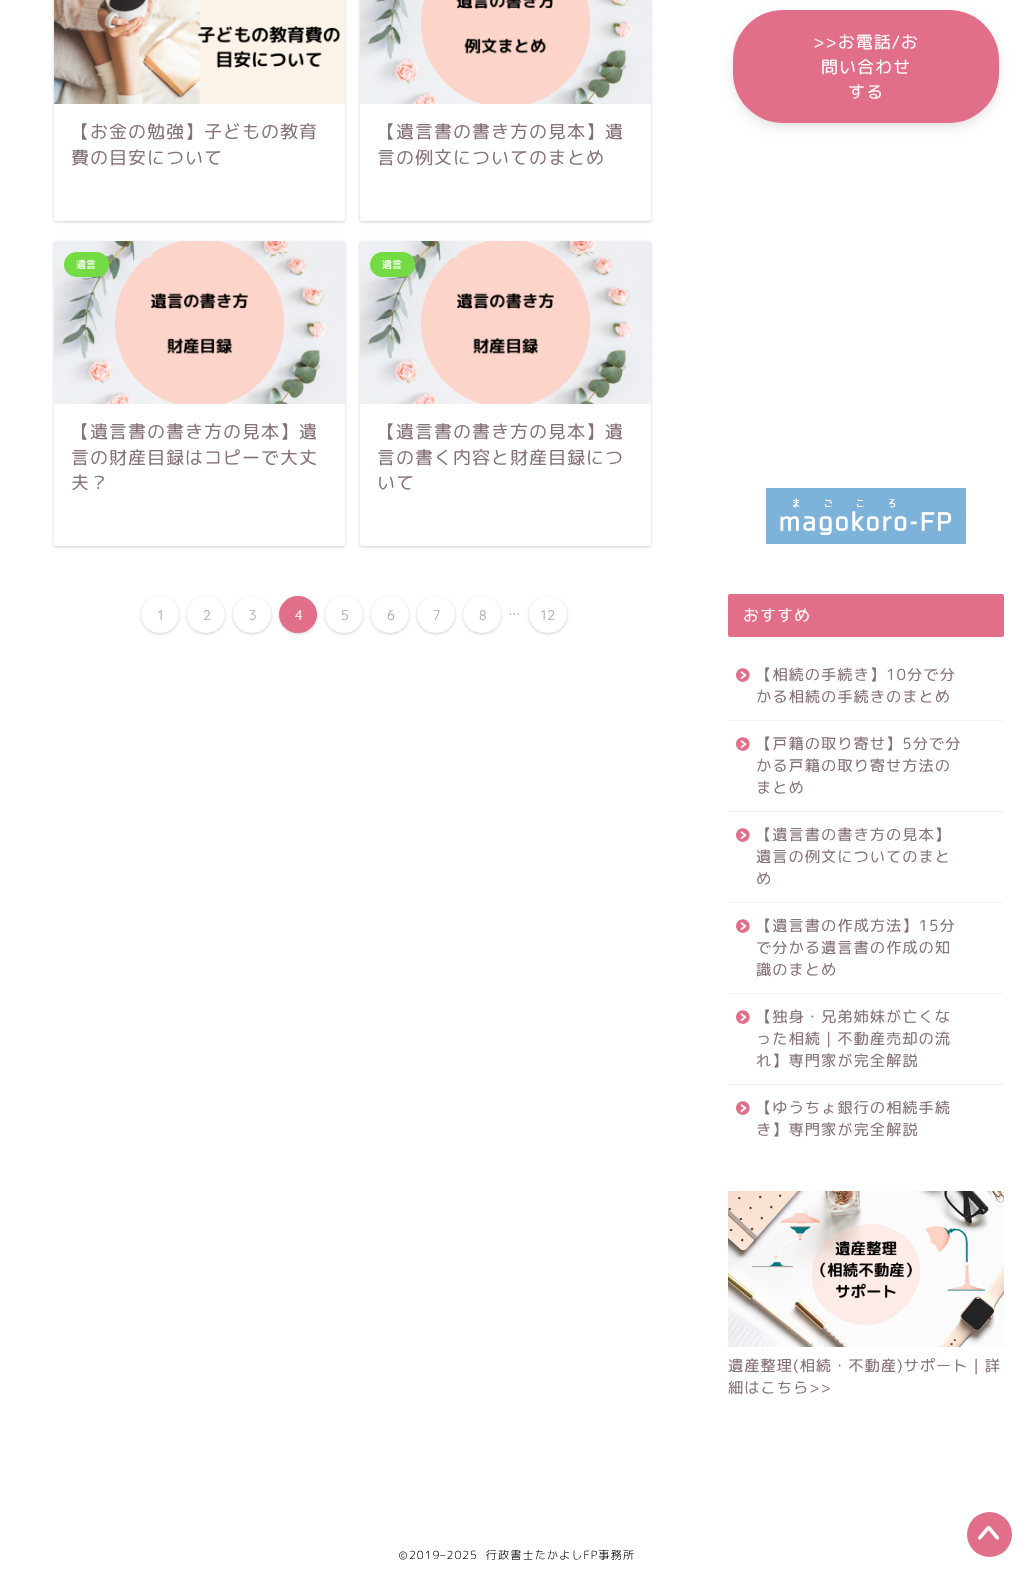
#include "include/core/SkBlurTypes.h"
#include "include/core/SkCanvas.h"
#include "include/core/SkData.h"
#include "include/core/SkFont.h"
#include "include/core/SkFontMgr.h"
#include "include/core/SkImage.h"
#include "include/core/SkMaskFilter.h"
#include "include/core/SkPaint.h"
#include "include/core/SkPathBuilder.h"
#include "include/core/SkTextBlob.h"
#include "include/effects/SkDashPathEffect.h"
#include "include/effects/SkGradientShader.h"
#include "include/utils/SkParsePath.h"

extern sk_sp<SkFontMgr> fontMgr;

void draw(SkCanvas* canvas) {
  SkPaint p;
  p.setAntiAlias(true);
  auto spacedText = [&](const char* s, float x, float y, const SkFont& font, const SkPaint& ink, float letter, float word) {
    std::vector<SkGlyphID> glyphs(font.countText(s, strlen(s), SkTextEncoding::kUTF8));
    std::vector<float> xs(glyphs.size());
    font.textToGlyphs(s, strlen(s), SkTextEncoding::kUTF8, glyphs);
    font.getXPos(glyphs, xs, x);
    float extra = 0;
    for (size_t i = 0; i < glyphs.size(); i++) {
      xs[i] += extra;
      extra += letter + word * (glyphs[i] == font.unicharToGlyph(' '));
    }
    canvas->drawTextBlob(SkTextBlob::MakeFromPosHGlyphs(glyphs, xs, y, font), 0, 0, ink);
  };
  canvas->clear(SK_ColorWHITE);
  p.setColor(SkColorSetARGB(46, 0, 0, 0));
  p.setMaskFilter(SkMaskFilter::MakeBlur(kNormal_SkBlurStyle, 1.5f));
  canvas->drawRoundRect(SkRect::MakeLTRB(54, -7, 345, 222), 2, 2, p);
  p.setMaskFilter(nullptr);
  p.setColor(SK_ColorWHITE);
  canvas->drawRoundRect(SkRect::MakeLTRB(54, -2, 345, 221), 2, 2, p);
  canvas->drawImageRect(SkImages::DeferredFromEncodedData(SkData::MakeFromFileName("images/1.png")), SkRect::MakeLTRB(54, 0, 345, 104), SkSamplingOptions());
  p.setColor(SkColorSetARGB(46, 0, 0, 0));
  p.setMaskFilter(SkMaskFilter::MakeBlur(kNormal_SkBlurStyle, 1.5f));
  canvas->drawRoundRect(SkRect::MakeLTRB(360, -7, 651, 222), 2, 2, p);
  p.setMaskFilter(nullptr);
  p.setColor(SK_ColorWHITE);
  canvas->drawRoundRect(SkRect::MakeLTRB(360, -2, 651, 221), 2, 2, p);
  canvas->drawImageRect(SkImages::DeferredFromEncodedData(SkData::MakeFromFileName("images/2.png")), SkRect::MakeLTRB(360, 0, 651, 104), SkSamplingOptions());
  p.setColor(SkColorSetARGB(46, 0, 0, 0));
  p.setMaskFilter(SkMaskFilter::MakeBlur(kNormal_SkBlurStyle, 1.5f));
  canvas->drawRoundRect(SkRect::MakeLTRB(54, 242, 345, 547), 2, 2, p);
  p.setMaskFilter(nullptr);
  p.setColor(SK_ColorWHITE);
  canvas->drawRoundRect(SkRect::MakeLTRB(54, 241, 345, 546), 2, 2, p);
  canvas->drawImageRect(SkImages::DeferredFromEncodedData(SkData::MakeFromFileName("images/3.png")), SkRect::MakeLTRB(54, 241, 345, 404), SkSamplingOptions());
  p.setColor(SkColorSetRGB(115, 219, 67));
  canvas->drawRoundRect(SkRect::MakeLTRB(64, 252, 109, 277), 12.5f, 12.5f, p);
  p.setColor(SkColorSetARGB(46, 0, 0, 0));
  p.setMaskFilter(SkMaskFilter::MakeBlur(kNormal_SkBlurStyle, 1.5f));
  canvas->drawRoundRect(SkRect::MakeLTRB(360, 242, 651, 547), 2, 2, p);
  p.setMaskFilter(nullptr);
  p.setColor(SK_ColorWHITE);
  canvas->drawRoundRect(SkRect::MakeLTRB(360, 241, 651, 546), 2, 2, p);
  canvas->drawImageRect(SkImages::DeferredFromEncodedData(SkData::MakeFromFileName("images/3.png")), SkRect::MakeLTRB(360, 241, 651, 404), SkSamplingOptions());
  p.setColor(SkColorSetRGB(115, 219, 67));
  canvas->drawRoundRect(SkRect::MakeLTRB(370, 252, 415, 277), 12.5f, 12.5f, p);
  p.setColor(SkColorSetARGB(46, 0, 0, 0));
  p.setMaskFilter(SkMaskFilter::MakeBlur(kNormal_SkBlurStyle, 1.5f));
  canvas->drawRoundRect(SkRect::MakeLTRB(141, 597, 179, 634), 18.5f, 18.5f, p);
  p.setMaskFilter(nullptr);
  p.setColor(SK_ColorWHITE);
  canvas->drawRoundRect(SkRect::MakeLTRB(141, 596, 179, 633), 18.5f, 18.5f, p);
  p.setColor(SkColorSetARGB(46, 0, 0, 0));
  p.setMaskFilter(SkMaskFilter::MakeBlur(kNormal_SkBlurStyle, 1.5f));
  canvas->drawRoundRect(SkRect::MakeLTRB(187, 597, 225, 634), 18.5f, 18.5f, p);
  p.setMaskFilter(nullptr);
  p.setColor(SK_ColorWHITE);
  canvas->drawRoundRect(SkRect::MakeLTRB(187, 596, 225, 633), 18.5f, 18.5f, p);
  p.setColor(SkColorSetARGB(46, 0, 0, 0));
  p.setMaskFilter(SkMaskFilter::MakeBlur(kNormal_SkBlurStyle, 1.5f));
  canvas->drawRoundRect(SkRect::MakeLTRB(233, 597, 271, 634), 18.5f, 18.5f, p);
  p.setMaskFilter(nullptr);
  p.setColor(SK_ColorWHITE);
  canvas->drawRoundRect(SkRect::MakeLTRB(233, 596, 271, 633), 18.5f, 18.5f, p);
  p.setColor(SkColorSetARGB(46, 0, 0, 0));
  p.setMaskFilter(SkMaskFilter::MakeBlur(kNormal_SkBlurStyle, 1.5f));
  canvas->drawRoundRect(SkRect::MakeLTRB(279, 597, 317, 634), 18.5f, 18.5f, p);
  p.setMaskFilter(nullptr);
  p.setColor(SkColorSetRGB(226, 111, 138));
  canvas->drawRoundRect(SkRect::MakeLTRB(279.5f, 596.5f, 316.5f, 632.5f), 18, 18, p);
  p.setStyle(SkPaint::kStroke_Style);
  p.setStrokeWidth(1);
  canvas->drawRoundRect(SkRect::MakeLTRB(279.5f, 596.5f, 316.5f, 632.5f), 18, 18, p);
  p.setStyle(SkPaint::kFill_Style);
  p.setColor(SkColorSetARGB(46, 0, 0, 0));
  p.setMaskFilter(SkMaskFilter::MakeBlur(kNormal_SkBlurStyle, 1.5f));
  canvas->drawRoundRect(SkRect::MakeLTRB(325, 597, 363, 634), 18.5f, 18.5f, p);
  p.setMaskFilter(nullptr);
  p.setColor(SK_ColorWHITE);
  canvas->drawRoundRect(SkRect::MakeLTRB(325, 596, 363, 633), 18.5f, 18.5f, p);
  p.setColor(SkColorSetARGB(46, 0, 0, 0));
  p.setMaskFilter(SkMaskFilter::MakeBlur(kNormal_SkBlurStyle, 1.5f));
  canvas->drawRoundRect(SkRect::MakeLTRB(371, 597, 409, 634), 18.5f, 18.5f, p);
  p.setMaskFilter(nullptr);
  p.setColor(SK_ColorWHITE);
  canvas->drawRoundRect(SkRect::MakeLTRB(371, 596, 409, 633), 18.5f, 18.5f, p);
  p.setColor(SkColorSetARGB(46, 0, 0, 0));
  p.setMaskFilter(SkMaskFilter::MakeBlur(kNormal_SkBlurStyle, 1.5f));
  canvas->drawRoundRect(SkRect::MakeLTRB(417, 597, 455, 634), 18.5f, 18.5f, p);
  p.setMaskFilter(nullptr);
  p.setColor(SK_ColorWHITE);
  canvas->drawRoundRect(SkRect::MakeLTRB(417, 596, 455, 633), 18.5f, 18.5f, p);
  p.setColor(SkColorSetARGB(46, 0, 0, 0));
  p.setMaskFilter(SkMaskFilter::MakeBlur(kNormal_SkBlurStyle, 1.5f));
  canvas->drawRoundRect(SkRect::MakeLTRB(463, 597, 501, 634), 18.5f, 18.5f, p);
  p.setMaskFilter(nullptr);
  p.setColor(SK_ColorWHITE);
  canvas->drawRoundRect(SkRect::MakeLTRB(463, 596, 501, 633), 18.5f, 18.5f, p);
  p.setColor(SkColorSetARGB(46, 0, 0, 0));
  p.setMaskFilter(SkMaskFilter::MakeBlur(kNormal_SkBlurStyle, 1.5f));
  canvas->drawRoundRect(SkRect::MakeLTRB(529, 597, 567, 634), 18.5f, 18.5f, p);
  p.setMaskFilter(nullptr);
  p.setColor(SK_ColorWHITE);
  canvas->drawRoundRect(SkRect::MakeLTRB(529, 596, 567, 633), 18.5f, 18.5f, p);
  p.setColor(SkColorSetRGB(204, 204, 204));
  p.setMaskFilter(SkMaskFilter::MakeBlur(kNormal_SkBlurStyle, 7.5f));
  canvas->drawRoundRect(SkRect::MakeLTRB(738, 20, 994, 123), 45, 45, p);
  p.setMaskFilter(nullptr);
  p.setColor(SkColorSetRGB(226, 111, 138));
  canvas->drawRoundRect(SkRect::MakeLTRB(733, 10, 999, 123), 50, 50, p);
  canvas->drawImageRect(SkImages::DeferredFromEncodedData(SkData::MakeFromFileName("images/4.png")), SkRect::MakeLTRB(766, 488, 966, 544), SkSamplingOptions());
  canvas->drawRoundRect(SkRect::MakeLTRB(728, 594, 1004, 637), 2, 2, p);
  p.setColor(SkColorSetRGB(242, 242, 242));
  canvas->drawRect(SkRect::MakeLTRB(728, 720, 1004, 721), p);
  canvas->drawImageRect(SkImages::DeferredFromEncodedData(SkData::MakeFromFileName("images/5.png")), SkRect::MakeLTRB(736, 668, 750, 682), SkSamplingOptions());
  canvas->drawRect(SkRect::MakeLTRB(728, 811, 1004, 812), p);
  canvas->drawImageRect(SkImages::DeferredFromEncodedData(SkData::MakeFromFileName("images/5.png")), SkRect::MakeLTRB(736, 737, 750, 751), SkSamplingOptions());
  canvas->drawRect(SkRect::MakeLTRB(728, 902, 1004, 903), p);
  canvas->drawImageRect(SkImages::DeferredFromEncodedData(SkData::MakeFromFileName("images/5.png")), SkRect::MakeLTRB(736, 828, 750, 842), SkSamplingOptions());
  canvas->drawRect(SkRect::MakeLTRB(728, 993, 1004, 994), p);
  canvas->drawImageRect(SkImages::DeferredFromEncodedData(SkData::MakeFromFileName("images/5.png")), SkRect::MakeLTRB(736, 919, 750, 933), SkSamplingOptions());
  canvas->drawRect(SkRect::MakeLTRB(728, 1084, 1004, 1085), p);
  canvas->drawImageRect(SkImages::DeferredFromEncodedData(SkData::MakeFromFileName("images/5.png")), SkRect::MakeLTRB(736, 1010, 750, 1024), SkSamplingOptions());
  canvas->drawImageRect(SkImages::DeferredFromEncodedData(SkData::MakeFromFileName("images/5.png")), SkRect::MakeLTRB(736, 1101, 750, 1115), SkSamplingOptions());
  canvas->drawImageRect(SkImages::DeferredFromEncodedData(SkData::MakeFromFileName("images/6.png")), SkRect::MakeLTRB(728, 1191, 1004, 1347), SkSamplingOptions());
  canvas->drawImageRect(SkImages::DeferredFromEncodedData(SkData::MakeFromFileName("images/7.png")), SkRect::MakeLTRB(399, 1551, 407, 1560), SkSamplingOptions());
  p.setColor(SkColorSetRGB(226, 111, 138));
  canvas->drawCircle(989.5f, 1534.5f, 22.5f, p);
  canvas->drawImageRect(SkImages::DeferredFromEncodedData(SkData::MakeFromFileName("images/8.png")), SkRect::MakeLTRB(978, 1525, 1000, 1540), SkSamplingOptions());
  SkFont font1(fontMgr->matchFamilyStyle("Rounded Mplus 1c", SkFontStyle::Normal()), 18);
  font1.setSubpixel(true);
  p.setColor(SkColorSetRGB(135, 113, 121));
  spacedText("【お金の勉強】子どもの教育", 71, 138, font1, p, 1, 0);
  spacedText("費の目安について", 71, 164, font1, p, 1, 0);
  spacedText("【遺言書の書き方の見本】遺", 377, 138, font1, p, 1, 0);
  spacedText("言の例文についてのまとめ", 377, 164, font1, p, 1, 0);
  SkFont font2(fontMgr->matchFamilyStyle("Rounded Mplus 1c", SkFontStyle::Normal()), 10);
  font2.setSubpixel(true);
  p.setColor(SK_ColorWHITE);
  canvas->drawString("遺言", 76, 268, font2, p);
  p.setColor(SkColorSetRGB(135, 113, 121));
  spacedText("【遺言書の書き方の見本】遺", 71, 438, font1, p, 1, 0);
  spacedText("言の財産目録はコピーで大丈", 71, 464, font1, p, 1, 0);
  spacedText("夫？", 71, 489, font1, p, 1, 0);
  p.setColor(SK_ColorWHITE);
  canvas->drawString("遺言", 382, 268, font2, p);
  p.setColor(SkColorSetRGB(135, 113, 121));
  spacedText("【遺言書の書き方の見本】遺", 377, 438, font1, p, 1, 0);
  spacedText("言の書く内容と財産目録につ", 377, 464, font1, p, 1, 0);
  spacedText("いて", 377, 489, font1, p, 1, 0);
  SkFont font3(fontMgr->matchFamilyStyle("Quicksand", SkFontStyle(300, SkFontStyle::kNormal_Width, SkFontStyle::kUpright_Slant)), 14);
  font3.setSubpixel(true);
  p.setColor(SkColorSetRGB(170, 170, 170));
  spacedText("1", 158, 620, font3, p, 1, 0);
  spacedText("2", 203, 620, font3, p, 1, 0);
  spacedText("3", 249, 620, font3, p, 1, 0);
  p.setColor(SK_ColorWHITE);
  spacedText("4", 295, 620, font3, p, 1, 0);
  p.setColor(SkColorSetRGB(170, 170, 170));
  spacedText("5", 341, 620, font3, p, 1, 0);
  spacedText("6", 387, 620, font3, p, 1, 0);
  spacedText("7", 433, 620, font3, p, 1, 0);
  spacedText("8", 479, 620, font3, p, 1, 0);
  SkFont font4(fontMgr->matchFamilyStyle("Quicksand", SkFontStyle(300, SkFontStyle::kNormal_Width, SkFontStyle::kUpright_Slant)), 16);
  font4.setSubpixel(true);
  spacedText("...", 509, 615, font4, p, 1, 0);
  spacedText("12", 541, 620, font3, p, 1, 0);
  SkFont font5(fontMgr->matchFamilyStyle("Rounded Mplus 1c", SkFontStyle::Normal()), 17);
  font5.setSubpixel(true);
  p.setColor(SK_ColorWHITE);
  spacedText(">>お電話/お", 813, 48, font5, p, 1, 0);
  spacedText("問い合わせ", 821, 73, font5, p, 1, 0);
  spacedText("する", 848, 98, font5, p, 1, 0);
  SkFont font6(fontMgr->matchFamilyStyle("Rounded Mplus 1c", SkFontStyle::Normal()), 16);
  font6.setSubpixel(true);
  spacedText("おすすめ", 743, 621, font6, p, 1, 0);
  SkFont font7(fontMgr->matchFamilyStyle("Rounded Mplus 1c", SkFontStyle::Normal()), 15.25f);
  font7.setSubpixel(true);
  p.setColor(SkColorSetRGB(135, 113, 121));
  spacedText("【相続の手続き】10分で分", 756, 680, font7, p, 1, 0);
  spacedText("かる相続の手続きのまとめ", 756, 702, font7, p, 1, 0);
  spacedText("【戸籍の取り寄せ】5分で分", 756, 749, font7, p, 1, 0);
  spacedText("かる戸籍の取り寄せ方法の", 756, 771, font7, p, 1, 0);
  spacedText("まとめ", 756, 793, font7, p, 1, 0);
  spacedText("【遺言書の書き方の見本】", 756, 840, font7, p, 1, 0);
  spacedText("遺言の例文についてのまと", 756, 862, font7, p, 1, 0);
  spacedText("め", 756, 884, font7, p, 1, 0);
  spacedText("【遺言書の作成方法】15分", 756, 931, font7, p, 1, 0);
  spacedText("で分かる遺言書の作成の知", 756, 953, font7, p, 1, 0);
  spacedText("識のまとめ", 756, 975, font7, p, 1, 0);
  spacedText("【独身・兄弟姉妹が亡くな", 756, 1022, font7, p, 1, 0);
  spacedText("った相続｜不動産売却の流", 756, 1044, font7, p, 1, 0);
  spacedText("れ】専門家が完全解説", 756, 1066, font7, p, 1, 0);
  spacedText("【ゆうちょ銀行の相続手続", 756, 1113, font7, p, 1, 0);
  spacedText("き】専門家が完全解説", 756, 1135, font7, p, 1, 0);
  spacedText("遺産整理(相続・不動産)サポート｜詳", 728, 1371, font7, p, 1, 0);
  spacedText("細はこちら>>", 728, 1393, font7, p, 1, 0);
  SkFont font8(fontMgr->matchFamilyStyle("Rounded Mplus 1c", SkFontStyle(300, SkFontStyle::kNormal_Width, SkFontStyle::kUpright_Slant)), 11.2f);
  font8.setSubpixel(true);
  p.setColor(SK_ColorBLACK);
  spacedText("2019–2025  行政書士たかよしFP事務所", 409, 1559, font8, p, 1, 0);
}
